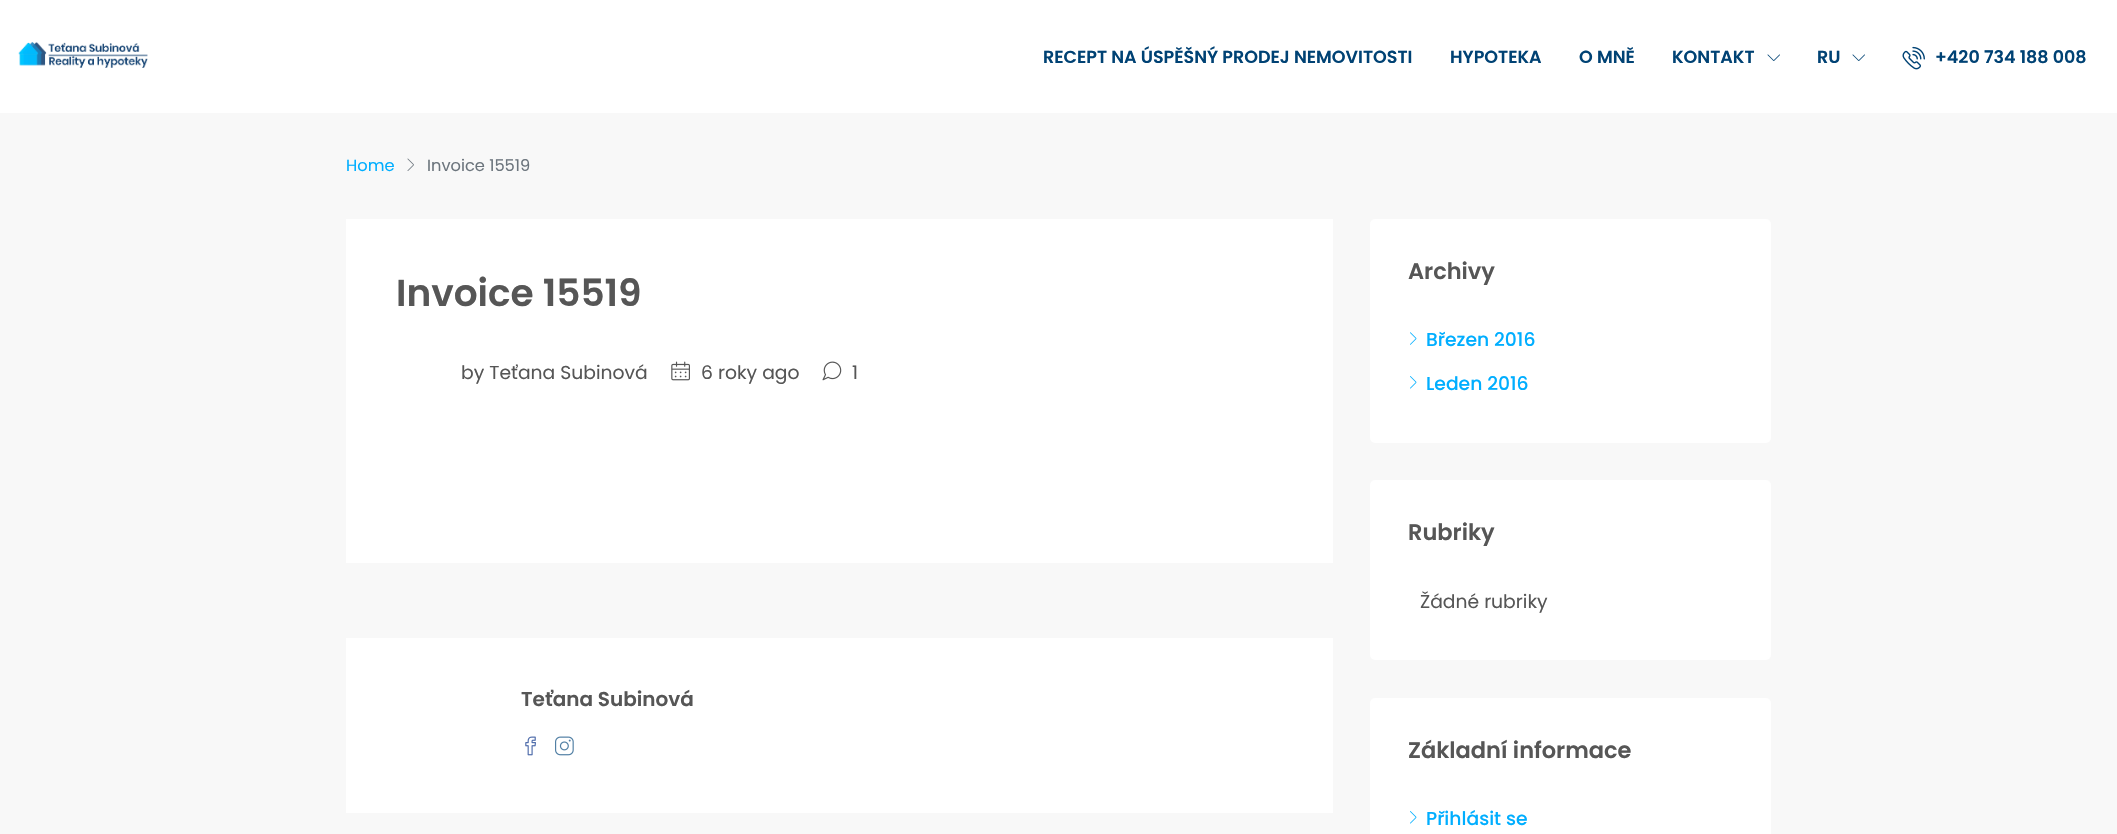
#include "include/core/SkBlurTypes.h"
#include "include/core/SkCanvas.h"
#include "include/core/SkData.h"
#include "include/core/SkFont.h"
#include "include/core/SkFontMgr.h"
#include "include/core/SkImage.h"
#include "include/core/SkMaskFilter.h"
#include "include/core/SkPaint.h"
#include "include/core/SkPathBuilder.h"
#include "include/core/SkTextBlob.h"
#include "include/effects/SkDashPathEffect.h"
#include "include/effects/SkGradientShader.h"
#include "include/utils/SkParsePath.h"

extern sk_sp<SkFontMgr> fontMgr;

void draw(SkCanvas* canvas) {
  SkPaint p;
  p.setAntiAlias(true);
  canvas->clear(SkColorSetRGB(248, 248, 248));
  p.setColor(SK_ColorWHITE);
  canvas->drawRect(SkRect::MakeLTRB(0, 0, 2117, 113), p);
  canvas->drawImageRect(SkImages::DeferredFromEncodedData(SkData::MakeFromFileName("images/1.png")), SkRect::MakeLTRB(18, 42, 148, 68), SkSamplingOptions());
  canvas->drawImageRect(SkImages::DeferredFromEncodedData(SkData::MakeFromFileName("images/2.png")), SkRect::MakeLTRB(1767, 54, 1780, 61), SkSamplingOptions());
  canvas->drawImageRect(SkImages::DeferredFromEncodedData(SkData::MakeFromFileName("images/2.png")), SkRect::MakeLTRB(1852, 54, 1865, 61), SkSamplingOptions());
  canvas->drawImageRect(SkImages::DeferredFromEncodedData(SkData::MakeFromFileName("images/3.png")), SkRect::MakeLTRB(1902, 46, 1925, 70), SkSamplingOptions());
  canvas->drawImageRect(SkImages::DeferredFromEncodedData(SkData::MakeFromFileName("images/4.png")), SkRect::MakeLTRB(407, 158, 414, 171), SkSamplingOptions());
  canvas->drawRect(SkRect::MakeLTRB(346, 219, 1333, 563), p);
  canvas->drawImageRect(SkImages::DeferredFromEncodedData(SkData::MakeFromFileName("images/5.png")), SkRect::MakeLTRB(671, 361, 690, 381), SkSamplingOptions());
  canvas->drawImageRect(SkImages::DeferredFromEncodedData(SkData::MakeFromFileName("images/6.png")), SkRect::MakeLTRB(822, 361, 842, 381), SkSamplingOptions());
  canvas->drawRect(SkRect::MakeLTRB(346, 638, 1333, 813), p);
  canvas->drawImageRect(SkImages::DeferredFromEncodedData(SkData::MakeFromFileName("images/7.png")), SkRect::MakeLTRB(525, 736, 536, 756), SkSamplingOptions());
  canvas->drawImageRect(SkImages::DeferredFromEncodedData(SkData::MakeFromFileName("images/8.png")), SkRect::MakeLTRB(555, 736, 574, 756), SkSamplingOptions());
  canvas->drawRoundRect(SkRect::MakeLTRB(1370, 219, 1771, 443), 5, 5, p);
  canvas->drawImageRect(SkImages::DeferredFromEncodedData(SkData::MakeFromFileName("images/9.png")), SkRect::MakeLTRB(1410, 332, 1417, 345), SkSamplingOptions());
  canvas->drawImageRect(SkImages::DeferredFromEncodedData(SkData::MakeFromFileName("images/10.png")), SkRect::MakeLTRB(1410, 376, 1417, 389), SkSamplingOptions());
  canvas->drawRoundRect(SkRect::MakeLTRB(1370, 480, 1771, 660), 5, 5, p);
  canvas->drawRoundRect(SkRect::MakeLTRB(1370, 698, 1771, 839), 5, 5, p);
  canvas->drawImageRect(SkImages::DeferredFromEncodedData(SkData::MakeFromFileName("images/10.png")), SkRect::MakeLTRB(1410, 811, 1417, 824), SkSamplingOptions());
  SkFont font1(fontMgr->matchFamilyStyle("Poppins", SkFontStyle(600, SkFontStyle::kNormal_Width, SkFontStyle::kUpright_Slant)), 17.5f);
  font1.setSubpixel(true);
  p.setColor(SkColorSetRGB(0, 66, 116));
  canvas->drawString("RECEPT NA ÚSPĚŠNÝ PRODEJ NEMOVITOSTI", 1043, 63, font1, p);
  canvas->drawString("HYPOTEKA", 1450, 63, font1, p);
  canvas->drawString("O MNĚ", 1579, 63, font1, p);
  canvas->drawString("KONTAKT", 1672, 63, font1, p);
  canvas->drawString("RU", 1817, 63, font1, p);
  canvas->drawString("+420 734 188 008", 1935, 63, font1, p);
  SkFont font2(fontMgr->matchFamilyStyle("Poppins", SkFontStyle::Normal()), 16.25f);
  font2.setSubpixel(true);
  p.setColor(SkColorSetRGB(0, 174, 255));
  canvas->drawString("Home", 346, 171, font2, p);
  p.setColor(SkColorSetRGB(108, 117, 125));
  canvas->drawString("Invoice 15519", 427, 171, font2, p);
  SkFont font3(fontMgr->matchFamilyStyle("Poppins", SkFontStyle(600, SkFontStyle::kNormal_Width, SkFontStyle::kUpright_Slant)), 37.5f);
  font3.setSubpixel(true);
  p.setColor(SkColorSetRGB(86, 86, 86));
  canvas->drawString("Invoice 15519", 396, 306, font3, p);
  SkFont font4(fontMgr->matchFamilyStyle("Poppins", SkFontStyle::Normal()), 18.75f);
  font4.setSubpixel(true);
  canvas->drawString("by Teťana Subinová", 461, 379, font4, p);
  canvas->drawString("6 roky ago", 701, 379, font4, p);
  canvas->drawString("1", 852, 379, font4, p);
  SkFont font5(fontMgr->matchFamilyStyle("Poppins", SkFontStyle(600, SkFontStyle::kNormal_Width, SkFontStyle::kUpright_Slant)), 20);
  font5.setSubpixel(true);
  canvas->drawString("Teťana Subinová", 521, 706, font5, p);
  SkFont font6(fontMgr->matchFamilyStyle("Poppins", SkFontStyle(600, SkFontStyle::kNormal_Width, SkFontStyle::kUpright_Slant)), 22.5f);
  font6.setSubpixel(true);
  canvas->drawString("Archivy", 1408, 279, font6, p);
  SkFont font7(fontMgr->matchFamilyStyle("Poppins", SkFontStyle(500, SkFontStyle::kNormal_Width, SkFontStyle::kUpright_Slant)), 18.75f);
  font7.setSubpixel(true);
  p.setColor(SkColorSetRGB(0, 174, 255));
  canvas->drawString("Březen 2016", 1426, 346, font7, p);
  canvas->drawString("Leden 2016", 1426, 390, font7, p);
  p.setColor(SkColorSetRGB(86, 86, 86));
  canvas->drawString("Rubriky", 1408, 540, font6, p);
  canvas->drawString("Žádné rubriky", 1420, 608, font4, p);
  canvas->drawString("Základní informace", 1408, 758, font6, p);
  p.setColor(SkColorSetRGB(0, 174, 255));
  canvas->drawString("Přihlásit se", 1426, 825, font7, p);
}
